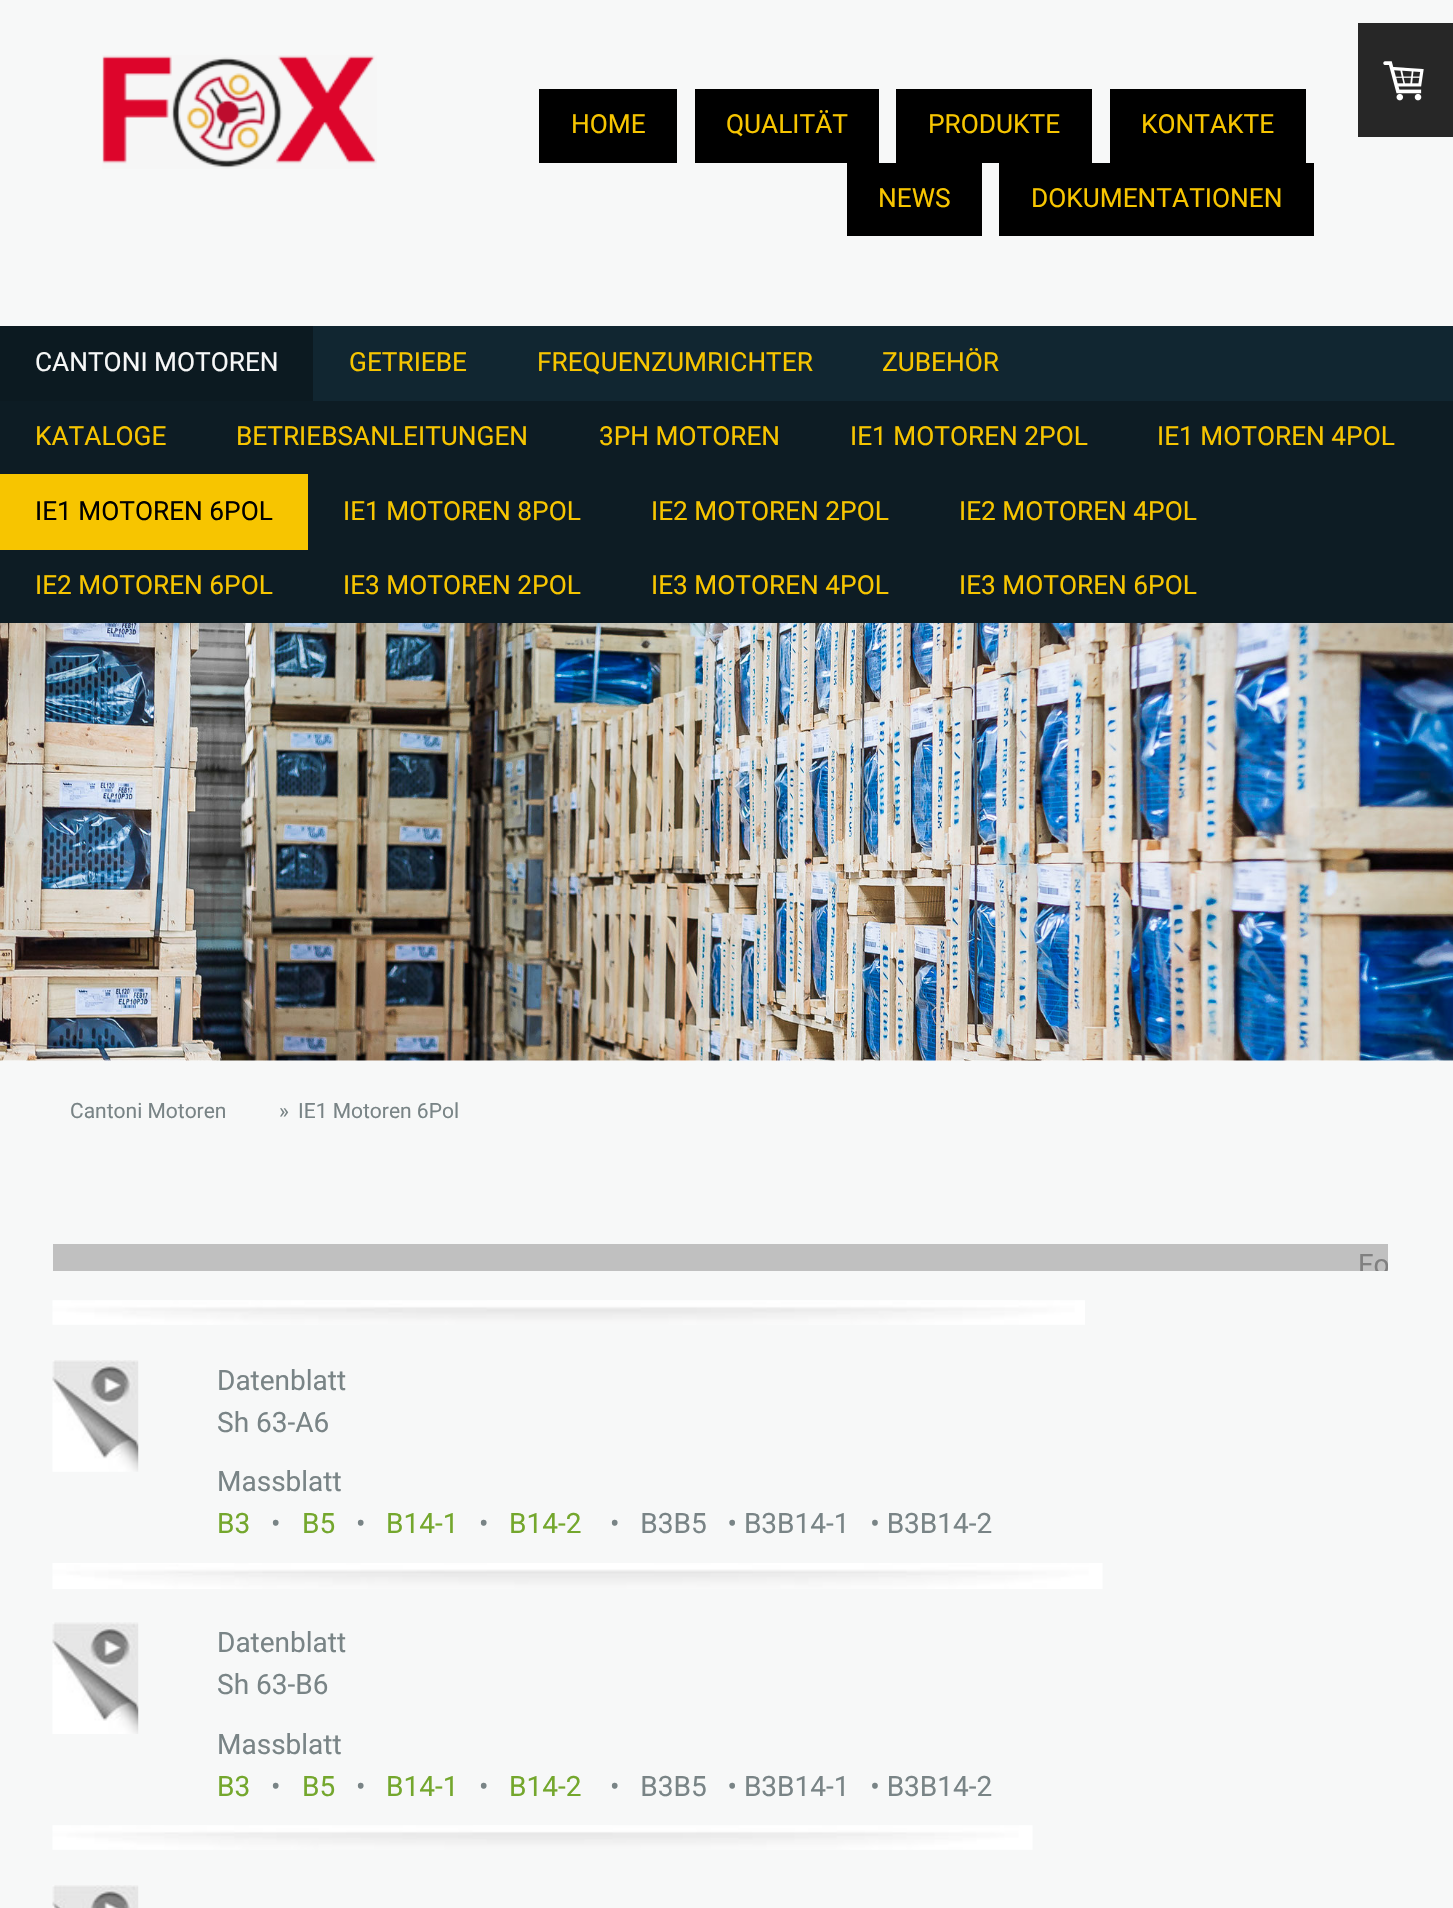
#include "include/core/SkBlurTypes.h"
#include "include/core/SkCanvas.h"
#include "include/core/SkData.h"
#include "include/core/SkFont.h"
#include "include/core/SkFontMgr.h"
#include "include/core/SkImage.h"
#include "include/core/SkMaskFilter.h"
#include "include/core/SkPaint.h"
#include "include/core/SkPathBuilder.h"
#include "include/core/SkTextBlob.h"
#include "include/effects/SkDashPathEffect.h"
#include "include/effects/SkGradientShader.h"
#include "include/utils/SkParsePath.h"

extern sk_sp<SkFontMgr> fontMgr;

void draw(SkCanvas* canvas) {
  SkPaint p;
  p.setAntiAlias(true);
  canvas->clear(SK_ColorWHITE);
  p.setColor(SkColorSetRGB(247, 248, 248));
  canvas->drawRect(SkRect::MakeLTRB(0, 0, 1453, 326), p);
  p.setColor(SkColorSetRGB(39, 39, 39));
  canvas->drawRect(SkRect::MakeLTRB(1358, 23, 1453, 137), p);
  canvas->drawImageRect(SkImages::DeferredFromEncodedData(SkData::MakeFromFileName("images/1.png")), SkRect::MakeLTRB(1383, 61, 1424, 101), SkSamplingOptions());
  canvas->drawImageRect(SkImages::DeferredFromEncodedData(SkData::MakeFromFileName("images/2.png")), SkRect::MakeLTRB(102, 55, 377, 169), SkSamplingOptions());
  p.setColor(SK_ColorBLACK);
  canvas->drawRect(SkRect::MakeLTRB(539, 89, 677, 163), p);
  canvas->drawRect(SkRect::MakeLTRB(695, 89, 879, 163), p);
  canvas->drawRect(SkRect::MakeLTRB(896, 89, 1092, 163), p);
  canvas->drawRect(SkRect::MakeLTRB(1110, 89, 1306, 163), p);
  canvas->drawRect(SkRect::MakeLTRB(847, 163, 982, 236), p);
  canvas->drawRect(SkRect::MakeLTRB(999, 163, 1314, 236), p);
  p.setColor(SkColorSetRGB(17, 38, 49));
  canvas->drawRect(SkRect::MakeLTRB(313, 326, 1453, 401), p);
  p.setColor(SkColorSetRGB(12, 26, 33));
  canvas->drawRect(SkRect::MakeLTRB(0, 326, 313, 401), p);
  p.setColor(SkColorSetRGB(13, 28, 36));
  canvas->drawRect(SkRect::MakeLTRB(0, 401, 1453, 623), p);
  p.setColor(SkColorSetRGB(247, 197, 0));
  canvas->drawRect(SkRect::MakeLTRB(0, 474, 308, 550), p);
  canvas->drawImageRect(SkImages::DeferredFromEncodedData(SkData::MakeFromFileName("images/3.png")), SkRect::MakeLTRB(0, 623, 1453, 1061), SkSamplingOptions());
  p.setColor(SkColorSetRGB(247, 248, 248));
  canvas->drawRect(SkRect::MakeLTRB(0, 1061, 1453, 1908), p);
  p.setColor(SkColorSetRGB(192, 192, 192));
  canvas->drawRect(SkRect::MakeLTRB(53, 1244, 1388, 1271), p);
  canvas->drawImageRect(SkImages::DeferredFromEncodedData(SkData::MakeFromFileName("images/4.png")), SkRect::MakeLTRB(52, 1300, 1085, 1325), SkSamplingOptions());
  canvas->drawImageRect(SkImages::DeferredFromEncodedData(SkData::MakeFromFileName("images/5.png")), SkRect::MakeLTRB(52, 1360, 139, 1472), SkSamplingOptions());
  canvas->drawImageRect(SkImages::DeferredFromEncodedData(SkData::MakeFromFileName("images/6.png")), SkRect::MakeLTRB(52, 1563, 1103, 1589), SkSamplingOptions());
  canvas->drawImageRect(SkImages::DeferredFromEncodedData(SkData::MakeFromFileName("images/7.png")), SkRect::MakeLTRB(52, 1622, 139, 1734), SkSamplingOptions());
  canvas->drawImageRect(SkImages::DeferredFromEncodedData(SkData::MakeFromFileName("images/8.png")), SkRect::MakeLTRB(52, 1825, 1033, 1850), SkSamplingOptions());
  canvas->drawImageRect(SkImages::DeferredFromEncodedData(SkData::MakeFromFileName("images/9.png")), SkRect::MakeLTRB(52, 1885, 139, 1908), SkSamplingOptions());
  SkFont font1(fontMgr->matchFamilyStyle("Roboto", SkFontStyle::Normal()), 26.25f);
  font1.setSubpixel(true);
  p.setColor(SkColorSetRGB(247, 197, 0));
  canvas->drawString("HOME", 571, 133, font1, p);
  canvas->drawString("QUALITÄT", 726, 133, font1, p);
  canvas->drawString("PRODUKTE", 928, 133, font1, p);
  canvas->drawString("KONTAKTE", 1141, 133, font1, p);
  canvas->drawString("NEWS", 878, 207, font1, p);
  canvas->drawString("DOKUMENTATIONEN", 1031, 207, font1, p);
  p.setColor(SkColorSetRGB(247, 248, 248));
  canvas->drawString("CANTONI MOTOREN", 35, 371, font1, p);
  p.setColor(SkColorSetRGB(247, 197, 0));
  canvas->drawString("GETRIEBE", 349, 371, font1, p);
  canvas->drawString("FREQUENZUMRICHTER", 537, 371, font1, p);
  canvas->drawString("ZUBEHÖR", 882, 371, font1, p);
  canvas->drawString("KATALOGE", 35, 445, font1, p);
  canvas->drawString("BETRIEBSANLEITUNGEN", 236, 445, font1, p);
  canvas->drawString("3PH MOTOREN", 599, 445, font1, p);
  canvas->drawString("IE1 MOTOREN 2POL", 850, 445, font1, p);
  canvas->drawString("IE1 MOTOREN 4POL", 1157, 445, font1, p);
  p.setColor(SK_ColorBLACK);
  canvas->drawString("IE1 MOTOREN 6POL", 35, 520, font1, p);
  p.setColor(SkColorSetRGB(247, 197, 0));
  canvas->drawString("IE1 MOTOREN 8POL", 343, 520, font1, p);
  canvas->drawString("IE2 MOTOREN 2POL", 651, 520, font1, p);
  canvas->drawString("IE2 MOTOREN 4POL", 959, 520, font1, p);
  canvas->drawString("IE2 MOTOREN 6POL", 35, 594, font1, p);
  canvas->drawString("IE3 MOTOREN 2POL", 343, 594, font1, p);
  canvas->drawString("IE3 MOTOREN 4POL", 651, 594, font1, p);
  canvas->drawString("IE3 MOTOREN 6POL", 959, 594, font1, p);
  SkFont font2(fontMgr->matchFamilyStyle("Roboto", SkFontStyle::Normal()), 21);
  font2.setSubpixel(true);
  p.setColor(SkColorSetRGB(121, 132, 134));
  canvas->drawString("Cantoni Motoren", 70, 1118, font2, p);
  canvas->drawString("»", 279, 1118, font2, p);
  canvas->drawString("IE1 Motoren 6Pol", 298, 1118, font2, p);
  canvas->save();
  canvas->clipRect(SkRect::MakeLTRB(53, 1244, 1388, 1271));
  SkFont font3(fontMgr->matchFamilyStyle("Roboto", SkFontStyle::Normal()), 28);
  font3.setSubpixel(true);
  p.setColor(SkColorSetRGB(128, 128, 128));
  canvas->drawString("Fo", 1358, 1274, font3, p);
  canvas->restore();
  p.setColor(SkColorSetRGB(121, 132, 134));
  canvas->drawString("Datenblatt", 217, 1390, font3, p);
  canvas->drawString("Sh 63-A6", 217, 1432, font3, p);
  canvas->drawString("Massblatt", 217, 1491, font3, p);
  p.setColor(SkColorSetRGB(116, 167, 45));
  canvas->drawString("B3", 217, 1533, font3, p);
  p.setColor(SkColorSetRGB(121, 132, 134));
  canvas->drawString("•", 271, 1533, font3, p);
  p.setColor(SkColorSetRGB(116, 167, 45));
  canvas->drawString("B5", 302, 1533, font3, p);
  p.setColor(SkColorSetRGB(121, 132, 134));
  canvas->drawString("•", 356, 1533, font3, p);
  p.setColor(SkColorSetRGB(116, 167, 45));
  canvas->drawString("B14-1", 386, 1533, font3, p);
  p.setColor(SkColorSetRGB(121, 132, 134));
  canvas->drawString("•", 479, 1533, font3, p);
  p.setColor(SkColorSetRGB(116, 167, 45));
  canvas->drawString("B14-2", 509, 1533, font3, p);
  p.setColor(SkColorSetRGB(121, 132, 134));
  canvas->drawString("•   B3B5   • B3B14-1   • B3B14-2", 610, 1533, font3, p);
  canvas->drawString("Datenblatt", 217, 1652, font3, p);
  canvas->drawString("Sh 63-B6", 217, 1694, font3, p);
  canvas->drawString("Massblatt", 217, 1754, font3, p);
  p.setColor(SkColorSetRGB(116, 167, 45));
  canvas->drawString("B3", 217, 1796, font3, p);
  p.setColor(SkColorSetRGB(121, 132, 134));
  canvas->drawString("•", 271, 1796, font3, p);
  p.setColor(SkColorSetRGB(116, 167, 45));
  canvas->drawString("B5", 302, 1796, font3, p);
  p.setColor(SkColorSetRGB(121, 132, 134));
  canvas->drawString("•", 356, 1796, font3, p);
  p.setColor(SkColorSetRGB(116, 167, 45));
  canvas->drawString("B14-1", 386, 1796, font3, p);
  p.setColor(SkColorSetRGB(121, 132, 134));
  canvas->drawString("•", 479, 1796, font3, p);
  p.setColor(SkColorSetRGB(116, 167, 45));
  canvas->drawString("B14-2", 509, 1796, font3, p);
  p.setColor(SkColorSetRGB(121, 132, 134));
  canvas->drawString("•   B3B5   • B3B14-1   • B3B14-2", 610, 1796, font3, p);
}
